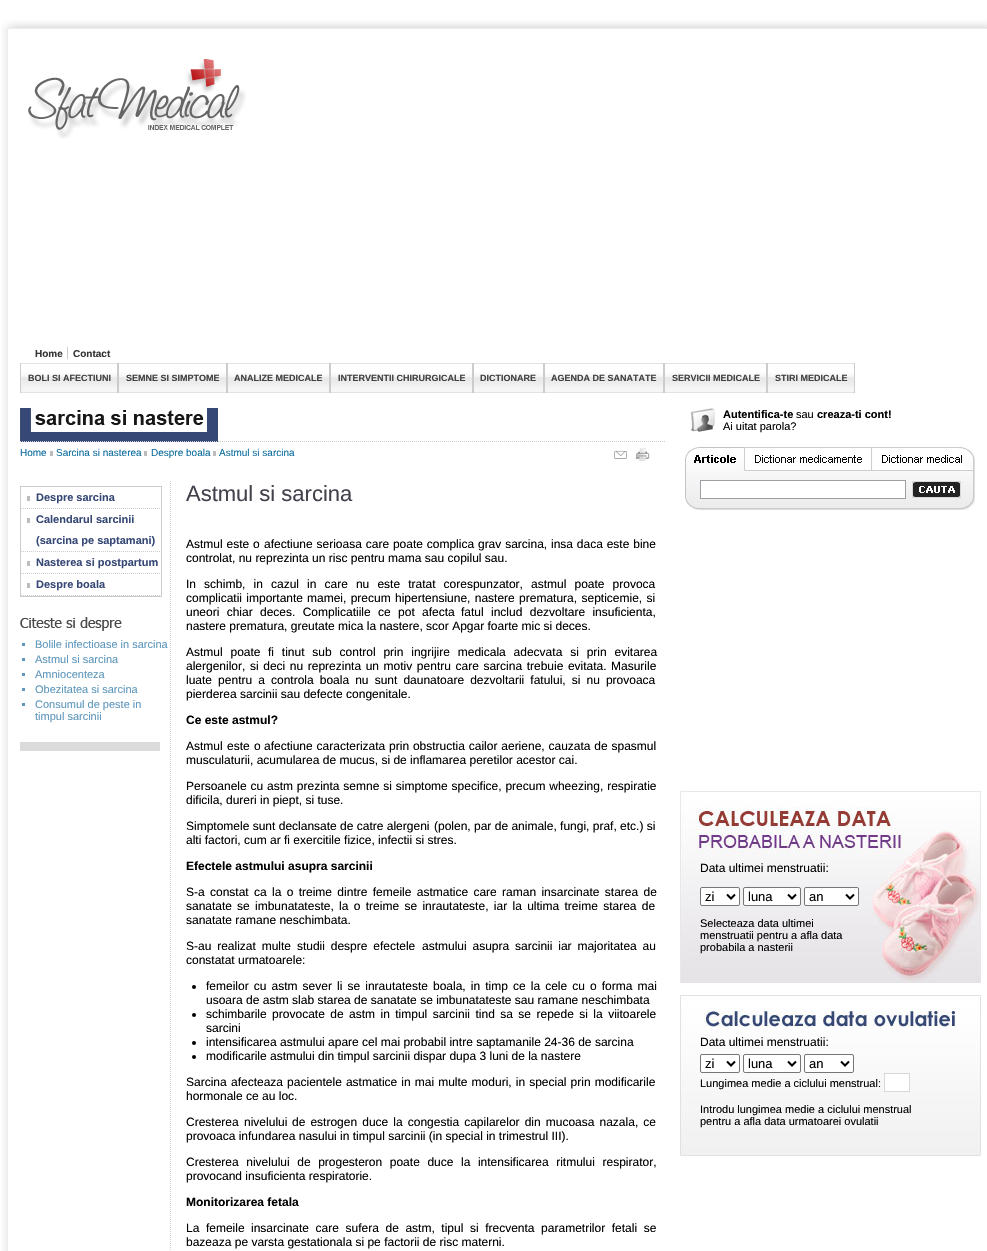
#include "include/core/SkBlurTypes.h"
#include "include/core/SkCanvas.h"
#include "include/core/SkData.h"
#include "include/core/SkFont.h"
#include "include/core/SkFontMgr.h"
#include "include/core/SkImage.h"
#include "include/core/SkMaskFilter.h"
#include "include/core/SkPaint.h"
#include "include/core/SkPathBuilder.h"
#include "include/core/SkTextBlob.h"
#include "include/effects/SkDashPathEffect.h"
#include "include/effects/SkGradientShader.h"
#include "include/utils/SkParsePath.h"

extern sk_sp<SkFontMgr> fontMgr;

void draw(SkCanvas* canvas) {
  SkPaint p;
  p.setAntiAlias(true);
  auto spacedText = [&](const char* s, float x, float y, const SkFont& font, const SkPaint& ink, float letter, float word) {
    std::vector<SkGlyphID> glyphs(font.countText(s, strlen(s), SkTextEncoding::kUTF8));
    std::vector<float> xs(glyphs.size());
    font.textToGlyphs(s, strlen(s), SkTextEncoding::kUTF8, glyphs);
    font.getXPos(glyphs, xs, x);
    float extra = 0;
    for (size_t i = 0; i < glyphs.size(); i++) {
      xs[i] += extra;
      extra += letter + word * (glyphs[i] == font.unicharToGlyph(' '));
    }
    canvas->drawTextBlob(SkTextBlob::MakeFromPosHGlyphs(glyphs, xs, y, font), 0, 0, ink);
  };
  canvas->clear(SK_ColorWHITE);
  canvas->drawImageRect(SkImages::DeferredFromEncodedData(SkData::MakeFromFileName("images/1.png")), SkRect::MakeLTRB(1, 29, 8, 1251), SkSamplingOptions());
  canvas->drawImageRect(SkImages::DeferredFromEncodedData(SkData::MakeFromFileName("images/2.png")), SkRect::MakeLTRB(1, 20, 987, 29), SkSamplingOptions());
  canvas->drawImageRect(SkImages::DeferredFromEncodedData(SkData::MakeFromFileName("images/3.png")), SkRect::MakeLTRB(28, 59, 246, 139), SkSamplingOptions());
  p.setColor(SkColorSetRGB(204, 204, 204));
  canvas->drawRect(SkRect::MakeLTRB(67, 347, 68, 359), p);
  canvas->drawImageRect(SkImages::DeferredFromEncodedData(SkData::MakeFromFileName("images/4.png")), SkRect::MakeLTRB(21, 363, 117, 393), SkSamplingOptions());
  canvas->drawRect(SkRect::MakeLTRB(117, 363, 119, 393), p);
  canvas->drawRect(SkRect::MakeLTRB(20, 363, 21, 393), p);
  canvas->drawImageRect(SkImages::DeferredFromEncodedData(SkData::MakeFromFileName("images/5.png")), SkRect::MakeLTRB(119, 363, 226, 393), SkSamplingOptions());
  canvas->drawRect(SkRect::MakeLTRB(226, 363, 228, 393), p);
  canvas->drawImageRect(SkImages::DeferredFromEncodedData(SkData::MakeFromFileName("images/6.png")), SkRect::MakeLTRB(228, 363, 329, 393), SkSamplingOptions());
  canvas->drawRect(SkRect::MakeLTRB(329, 363, 331, 393), p);
  canvas->drawImageRect(SkImages::DeferredFromEncodedData(SkData::MakeFromFileName("images/7.png")), SkRect::MakeLTRB(331, 363, 472, 393), SkSamplingOptions());
  canvas->drawRect(SkRect::MakeLTRB(472, 363, 474, 393), p);
  canvas->drawImageRect(SkImages::DeferredFromEncodedData(SkData::MakeFromFileName("images/8.png")), SkRect::MakeLTRB(474, 363, 543, 393), SkSamplingOptions());
  canvas->drawRect(SkRect::MakeLTRB(543, 363, 545, 393), p);
  canvas->drawImageRect(SkImages::DeferredFromEncodedData(SkData::MakeFromFileName("images/9.png")), SkRect::MakeLTRB(545, 363, 663, 393), SkSamplingOptions());
  canvas->drawRect(SkRect::MakeLTRB(663, 363, 665, 393), p);
  canvas->drawImageRect(SkImages::DeferredFromEncodedData(SkData::MakeFromFileName("images/6.png")), SkRect::MakeLTRB(665, 363, 766, 393), SkSamplingOptions());
  canvas->drawRect(SkRect::MakeLTRB(766, 363, 768, 393), p);
  canvas->drawImageRect(SkImages::DeferredFromEncodedData(SkData::MakeFromFileName("images/10.png")), SkRect::MakeLTRB(768, 363, 854, 393), SkSamplingOptions());
  canvas->drawRect(SkRect::MakeLTRB(854, 363, 855, 393), p);
  canvas->drawImageRect(SkImages::DeferredFromEncodedData(SkData::MakeFromFileName("images/11.png")), SkRect::MakeLTRB(20, 408, 218, 442), SkSamplingOptions());
  p.setStyle(SkPaint::kStroke_Style);
  p.setStrokeWidth(1);
  p.setPathEffect(SkDashPathEffect::Make({{1, 1}}, 0));
  canvas->drawPath(SkPathBuilder().moveTo(20, 441.5f).lineTo(665, 441.5f).detach(), p);
  p.setPathEffect(nullptr);
  p.setStyle(SkPaint::kFill_Style);
  p.setColor(SkColorSetRGB(188, 188, 188));
  canvas->drawRect(SkRect::MakeLTRB(50, 451, 53, 456), p);
  canvas->drawRect(SkRect::MakeLTRB(144, 451, 147, 456), p);
  canvas->drawRect(SkRect::MakeLTRB(213, 451, 216, 456), p);
  canvas->drawImageRect(SkImages::DeferredFromEncodedData(SkData::MakeFromFileName("images/12.png")), SkRect::MakeLTRB(614, 451, 627, 459), SkSamplingOptions());
  canvas->drawImageRect(SkImages::DeferredFromEncodedData(SkData::MakeFromFileName("images/13.png")), SkRect::MakeLTRB(635, 448, 650, 461), SkSamplingOptions());
  p.setStyle(SkPaint::kStroke_Style);
  p.setColor(SkColorSetRGB(204, 204, 204));
  canvas->drawRect(SkRect::MakeLTRB(20.5f, 486.5f, 161.5f, 596.5f), p);
  p.setStyle(SkPaint::kFill_Style);
  p.setColor(SkColorSetRGB(188, 188, 188));
  canvas->drawRect(SkRect::MakeLTRB(27, 496, 30, 501), p);
  p.setStyle(SkPaint::kStroke_Style);
  p.setColor(SkColorSetRGB(204, 204, 204));
  p.setPathEffect(SkDashPathEffect::Make({{1, 1}}, 0));
  canvas->drawPath(SkPathBuilder().moveTo(21, 508.5f).lineTo(161, 508.5f).detach(), p);
  p.setPathEffect(nullptr);
  p.setStyle(SkPaint::kFill_Style);
  p.setColor(SkColorSetRGB(188, 188, 188));
  canvas->drawRect(SkRect::MakeLTRB(27, 518, 30, 523), p);
  p.setStyle(SkPaint::kStroke_Style);
  p.setColor(SkColorSetRGB(204, 204, 204));
  p.setPathEffect(SkDashPathEffect::Make({{1, 1}}, 0));
  canvas->drawPath(SkPathBuilder().moveTo(21, 551.5f).lineTo(161, 551.5f).detach(), p);
  p.setPathEffect(nullptr);
  p.setStyle(SkPaint::kFill_Style);
  p.setColor(SkColorSetRGB(188, 188, 188));
  canvas->drawRect(SkRect::MakeLTRB(27, 561, 30, 566), p);
  p.setStyle(SkPaint::kStroke_Style);
  p.setColor(SkColorSetRGB(204, 204, 204));
  p.setPathEffect(SkDashPathEffect::Make({{1, 1}}, 0));
  canvas->drawPath(SkPathBuilder().moveTo(21, 573.5f).lineTo(161, 573.5f).detach(), p);
  p.setPathEffect(nullptr);
  p.setStyle(SkPaint::kFill_Style);
  p.setColor(SkColorSetRGB(188, 188, 188));
  canvas->drawRect(SkRect::MakeLTRB(27, 583, 30, 588), p);
  p.setStyle(SkPaint::kStroke_Style);
  p.setColor(SkColorSetRGB(204, 204, 204));
  p.setPathEffect(SkDashPathEffect::Make({{1, 1}}, 0));
  canvas->drawPath(SkPathBuilder().moveTo(21, 595.5f).lineTo(161, 595.5f).detach(), p);
  p.setPathEffect(nullptr);
  canvas->drawImageRect(SkImages::DeferredFromEncodedData(SkData::MakeFromFileName("images/14.png")), SkRect::MakeLTRB(20, 617, 122, 631), SkSamplingOptions());
  p.setStyle(SkPaint::kFill_Style);
  p.setColor(SkColorSetRGB(94, 151, 188));
  canvas->drawRect(SkRect::MakeLTRB(22, 643, 25, 646), p);
  canvas->drawRect(SkRect::MakeLTRB(22, 658, 25, 661), p);
  canvas->drawRect(SkRect::MakeLTRB(22, 673, 25, 676), p);
  canvas->drawRect(SkRect::MakeLTRB(22, 688, 25, 691), p);
  canvas->drawRect(SkRect::MakeLTRB(22, 703, 25, 706), p);
  p.setColor(SkColorSetRGB(219, 219, 219));
  canvas->drawRect(SkRect::MakeLTRB(20, 742, 160, 751), p);
  p.setStyle(SkPaint::kStroke_Style);
  p.setColor(SkColorSetRGB(204, 204, 204));
  p.setPathEffect(SkDashPathEffect::Make({{1, 1}}, 0));
  canvas->drawPath(SkPathBuilder().moveTo(170.5f, 481).lineTo(170.5f, 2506).detach(), p);
  p.setPathEffect(nullptr);
  p.setStyle(SkPaint::kFill_Style);
  p.setColor(SK_ColorBLACK);
  canvas->drawCircle(194, 987, 2, p);
  canvas->drawCircle(194, 1015, 2, p);
  canvas->drawCircle(194, 1043, 2, p);
  canvas->drawCircle(194, 1057, 2, p);
  canvas->drawImageRect(SkImages::DeferredFromEncodedData(SkData::MakeFromFileName("images/15.png")), SkRect::MakeLTRB(690, 408, 715, 432), SkSamplingOptions());
  canvas->drawImageRect(SkImages::DeferredFromEncodedData(SkData::MakeFromFileName("images/16.png")), SkRect::MakeLTRB(685, 447, 975, 510), SkSamplingOptions());
  canvas->drawImageRect(SkImages::DeferredFromEncodedData(SkData::MakeFromFileName("images/17.png")), SkRect::MakeLTRB(694, 447, 973, 471), SkSamplingOptions());
  p.setColor(SK_ColorWHITE);
  canvas->drawRect(SkRect::MakeLTRB(700.5f, 480.5f, 905.5f, 498.5f), p);
  p.setStyle(SkPaint::kStroke_Style);
  p.setColor(SkColorSetRGB(155, 158, 163));
  canvas->drawRect(SkRect::MakeLTRB(700.5f, 480.5f, 905.5f, 498.5f), p);
  p.setColor(SkColorSetRGB(218, 215, 215));
  canvas->drawRect(SkRect::MakeLTRB(912.5f, 481.5f, 960.5f, 497.5f), p);
  canvas->drawImageRect(SkImages::DeferredFromEncodedData(SkData::MakeFromFileName("images/18.png")), SkRect::MakeLTRB(913, 482, 960, 497), SkSamplingOptions());
  canvas->drawImageRect(SkImages::DeferredFromEncodedData(SkData::MakeFromFileName("images/19.png")), SkRect::MakeLTRB(680, 791, 981, 983), SkSamplingOptions());
  p.setStyle(SkPaint::kFill_Style);
  p.setColor(SK_ColorWHITE);
  canvas->drawRoundRect(SkRect::MakeLTRB(700.5f, 887.5f, 739.5f, 905.5f), 1.5f, 1.5f, p);
  p.setStyle(SkPaint::kStroke_Style);
  p.setColor(SkColorSetRGB(118, 118, 118));
  canvas->drawRoundRect(SkRect::MakeLTRB(700.5f, 887.5f, 739.5f, 905.5f), 1.5f, 1.5f, p);
  p.setStrokeWidth(2);
  p.setColor(SK_ColorBLACK);
  canvas->drawPath(SkPathBuilder().moveTo(727, 894.5f).lineTo(731, 898.5f).lineTo(735, 894.5f).detach(), p);
  p.setStyle(SkPaint::kFill_Style);
  p.setColor(SK_ColorWHITE);
  canvas->drawRoundRect(SkRect::MakeLTRB(743.5f, 887.5f, 800.5f, 905.5f), 1.5f, 1.5f, p);
  p.setStyle(SkPaint::kStroke_Style);
  p.setStrokeWidth(1);
  p.setColor(SkColorSetRGB(118, 118, 118));
  canvas->drawRoundRect(SkRect::MakeLTRB(743.5f, 887.5f, 800.5f, 905.5f), 1.5f, 1.5f, p);
  p.setStrokeWidth(2);
  p.setColor(SK_ColorBLACK);
  canvas->drawPath(SkPathBuilder().moveTo(788, 894.5f).lineTo(792, 898.5f).lineTo(796, 894.5f).detach(), p);
  p.setStyle(SkPaint::kFill_Style);
  p.setColor(SK_ColorWHITE);
  canvas->drawRoundRect(SkRect::MakeLTRB(804.5f, 887.5f, 858.5f, 905.5f), 1.5f, 1.5f, p);
  p.setStyle(SkPaint::kStroke_Style);
  p.setStrokeWidth(1);
  p.setColor(SkColorSetRGB(118, 118, 118));
  canvas->drawRoundRect(SkRect::MakeLTRB(804.5f, 887.5f, 858.5f, 905.5f), 1.5f, 1.5f, p);
  p.setStrokeWidth(2);
  p.setColor(SK_ColorBLACK);
  canvas->drawPath(SkPathBuilder().moveTo(846, 894.5f).lineTo(850, 898.5f).lineTo(854, 894.5f).detach(), p);
  canvas->drawImageRect(SkImages::DeferredFromEncodedData(SkData::MakeFromFileName("images/20.png")), SkRect::MakeLTRB(680, 995, 981, 1156), SkSamplingOptions());
  p.setStyle(SkPaint::kFill_Style);
  p.setColor(SK_ColorWHITE);
  canvas->drawRoundRect(SkRect::MakeLTRB(700.5f, 1054.5f, 739.5f, 1072.5f), 1.5f, 1.5f, p);
  p.setStyle(SkPaint::kStroke_Style);
  p.setStrokeWidth(1);
  p.setColor(SkColorSetRGB(118, 118, 118));
  canvas->drawRoundRect(SkRect::MakeLTRB(700.5f, 1054.5f, 739.5f, 1072.5f), 1.5f, 1.5f, p);
  p.setStrokeWidth(2);
  p.setColor(SK_ColorBLACK);
  canvas->drawPath(SkPathBuilder().moveTo(727, 1061.5f).lineTo(731, 1065.5f).lineTo(735, 1061.5f).detach(), p);
  p.setStyle(SkPaint::kFill_Style);
  p.setColor(SK_ColorWHITE);
  canvas->drawRoundRect(SkRect::MakeLTRB(743.5f, 1054.5f, 800.5f, 1072.5f), 1.5f, 1.5f, p);
  p.setStyle(SkPaint::kStroke_Style);
  p.setStrokeWidth(1);
  p.setColor(SkColorSetRGB(118, 118, 118));
  canvas->drawRoundRect(SkRect::MakeLTRB(743.5f, 1054.5f, 800.5f, 1072.5f), 1.5f, 1.5f, p);
  p.setStrokeWidth(2);
  p.setColor(SK_ColorBLACK);
  canvas->drawPath(SkPathBuilder().moveTo(788, 1061.5f).lineTo(792, 1065.5f).lineTo(796, 1061.5f).detach(), p);
  p.setStyle(SkPaint::kFill_Style);
  p.setColor(SK_ColorWHITE);
  canvas->drawRoundRect(SkRect::MakeLTRB(804.5f, 1054.5f, 853.5f, 1072.5f), 1.5f, 1.5f, p);
  p.setStyle(SkPaint::kStroke_Style);
  p.setStrokeWidth(1);
  p.setColor(SkColorSetRGB(118, 118, 118));
  canvas->drawRoundRect(SkRect::MakeLTRB(804.5f, 1054.5f, 853.5f, 1072.5f), 1.5f, 1.5f, p);
  p.setStrokeWidth(2);
  p.setColor(SK_ColorBLACK);
  canvas->drawPath(SkPathBuilder().moveTo(841, 1061.5f).lineTo(845, 1065.5f).lineTo(849, 1061.5f).detach(), p);
  p.setStyle(SkPaint::kFill_Style);
  p.setColor(SK_ColorWHITE);
  canvas->drawRect(SkRect::MakeLTRB(884.5f, 1073.5f, 909.5f, 1091.5f), p);
  p.setStyle(SkPaint::kStroke_Style);
  p.setStrokeWidth(1);
  p.setColor(SkColorSetRGB(218, 215, 215));
  canvas->drawRect(SkRect::MakeLTRB(884.5f, 1073.5f, 909.5f, 1091.5f), p);
  SkFont font1(fontMgr->matchFamilyStyle("Liberation Sans", SkFontStyle::Bold()), 10);
  font1.setSubpixel(true);
  p.setStyle(SkPaint::kFill_Style);
  p.setColor(SkColorSetRGB(53, 52, 52));
  canvas->drawString("Home", 35, 357, font1, p);
  canvas->drawString("Contact", 73, 357, font1, p);
  SkFont font2(fontMgr->matchFamilyStyle("Liberation Sans", SkFontStyle::Bold()), 9);
  font2.setSubpixel(true);
  p.setColor(SkColorSetRGB(64, 64, 64));
  canvas->drawString("BOLI SI AFECTIUNI", 28, 381, font2, p);
  canvas->drawString("SEMNE SI SIMPTOME", 126, 381, font2, p);
  canvas->drawString("ANALIZE MEDICALE", 234, 381, font2, p);
  canvas->drawString("INTERVENTII CHIRURGICALE", 338, 381, font2, p);
  canvas->drawString("DICTIONARE", 480, 381, font2, p);
  canvas->drawString("AGENDA DE SANATATE", 551, 381, font2, p);
  canvas->drawString("SERVICII MEDICALE", 672, 381, font2, p);
  canvas->drawString("STIRI MEDICALE", 775, 381, font2, p);
  SkFont font3(fontMgr->matchFamilyStyle("Liberation Sans", SkFontStyle::Normal()), 10);
  font3.setSubpixel(true);
  p.setColor(SkColorSetRGB(13, 110, 159));
  canvas->drawString("Home", 20, 456, font3, p);
  canvas->drawString("Sarcina si nasterea", 56, 456, font3, p);
  canvas->drawString("Despre boala", 151, 456, font3, p);
  canvas->drawString("Astmul si sarcina", 219, 456, font3, p);
  SkFont font4(fontMgr->matchFamilyStyle("Liberation Sans", SkFontStyle::Bold()), 11);
  font4.setSubpixel(true);
  p.setColor(SkColorSetRGB(54, 72, 117));
  canvas->drawString("Despre sarcina", 36, 501, font4, p);
  canvas->drawString("Calendarul sarcinii", 36, 523, font4, p);
  canvas->drawString("(sarcina pe saptamani)", 36, 544, font4, p);
  canvas->drawString("Nasterea si postpartum", 36, 566, font4, p);
  canvas->drawString("Despre boala", 36, 588, font4, p);
  SkFont font5(fontMgr->matchFamilyStyle("Liberation Sans", SkFontStyle::Normal()), 11);
  font5.setSubpixel(true);
  p.setColor(SkColorSetRGB(94, 151, 188));
  canvas->drawString("Bolile infectioase in sarcina", 35, 648, font5, p);
  canvas->drawString("Astmul si sarcina", 35, 663, font5, p);
  canvas->drawString("Amniocenteza", 35, 678, font5, p);
  canvas->drawString("Obezitatea si sarcina", 35, 693, font5, p);
  canvas->drawString("Consumul de peste in", 35, 708, font5, p);
  canvas->drawString("timpul sarcinii", 35, 720, font5, p);
  SkFont font6(fontMgr->matchFamilyStyle("Liberation Sans", SkFontStyle::Normal()), 22);
  font6.setSubpixel(true);
  p.setColor(SkColorSetRGB(67, 65, 76));
  canvas->drawString("Astmul si sarcina", 186, 501, font6, p);
  SkFont font7(fontMgr->matchFamilyStyle("Liberation Sans", SkFontStyle::Normal()), 12);
  font7.setSubpixel(true);
  p.setColor(SK_ColorBLACK);
  spacedText("Astmul este o", 186, 548, font7, p, 0, 0.5f);
  spacedText("afectiune serioasa care poate complica grav sarcina, insa daca este bine", 264, 548, font7, p, 0, 0.5f);
  canvas->drawString("controlat, nu reprezinta un risc pentru mama sau copilul sau.", 186, 562, font7, p);
  spacedText("In schimb, in", 186, 588, font7, p, 0, 4.75f);
  spacedText("cazul in care nu este tratat corespunzator, astmul poate provoca", 271, 588, font7, p, 0, 4.75f);
  spacedText("complicatii importante", 186, 602, font7, p, 0, 1);
  spacedText("mamei, precum hipertensiune, nastere prematura, septicemie, si", 307, 602, font7, p, 0, 1);
  spacedText("uneori chiar", 186, 616, font7, p, 0, 4);
  spacedText("deces. Complicatiile ce pot afecta", 260, 616, font7, p, 0, 4);
  spacedText("fatul includ dezvoltare insuficienta,", 461, 616, font7, p, 0, 4);
  canvas->drawString("nastere prematura, greutate mica la nastere, scor Apgar foarte mic si deces.", 186, 630, font7, p);
  spacedText("Astmul poate", 186, 656, font7, p, 0, 4.5f);
  spacedText("fi tinut sub control prin ingrijire medicala adecvata si prin evitarea", 268, 656, font7, p, 0, 4.5f);
  spacedText("alergenilor, si deci nu reprezinta un motiv pentru care sarcina trebuie evitata.", 186, 670, font7, p, 0, 1.25f);
  canvas->drawString("Masurile", 611, 670, font7, p);
  spacedText("luate pentru a controla boala nu sunt daunatoare dezvoltarii fatului, si nu provoaca", 186, 684, font7, p, 0, 2.75f);
  canvas->drawString("pierderea sarcinii sau defecte congenitale.", 186, 698, font7, p);
  SkFont font8(fontMgr->matchFamilyStyle("Liberation Sans", SkFontStyle::Bold()), 12);
  font8.setSubpixel(true);
  canvas->drawString("Ce este astmul?", 186, 724, font8, p);
  spacedText("Astmul este o", 186, 750, font7, p, 0, 1);
  spacedText("afectiune caracterizata prin obstructia cailor aeriene, cauzata de spasmul", 264, 750, font7, p, 0, 0.5f);
  canvas->drawString("musculaturii, acumularea de mucus, si de inflamarea peretilor acestor cai.", 186, 764, font7, p);
  spacedText("Persoanele cu", 186, 790, font7, p, 0, 0.5f);
  spacedText("astm prezinta semne si simptome specifice, precum wheezing, respiratie", 267, 790, font7, p, 0, 0.5f);
  canvas->drawString("dificila, dureri in piept, si tuse.", 186, 804, font7, p);
  canvas->drawString("Simptomele sunt declansate de catre alergeni", 186, 830, font7, p);
  canvas->drawString("(polen, par de animale, fungi, praf, etc.) si", 434, 830, font7, p);
  canvas->drawString("alti factori, cum ar fi exercitile fizice, infectii si stres.", 186, 844, font7, p);
  canvas->drawString("Efectele astmului asupra sarcinii", 186, 870, font8, p);
  spacedText("S-a constat", 186, 896, font7, p, 0, 2);
  spacedText("ca la o treime dintre femeile astmatice care raman insarcinate starea de", 254, 896, font7, p, 0, 2);
  canvas->drawString("sanatate", 186, 910, font7, p);
  spacedText("se imbunatateste, la o treime se inrautateste, iar la ultima treime starea de", 237, 910, font7, p, 0, 2);
  canvas->drawString("sanatate ramane neschimbata.", 186, 924, font7, p);
  spacedText("S-au realizat multe studii despre efectele", 186, 950, font7, p, 0, 2.5f);
  spacedText("astmului asupra sarcinii iar majoritatea au", 422, 950, font7, p, 0, 2.5f);
  canvas->drawString("constatat urmatoarele:", 186, 964, font7, p);
  spacedText("femeilor cu astm sever li se inrautateste boala, in timp ce la cele cu o forma mai", 206, 990, font7, p, 0, 1.75f);
  canvas->drawString("usoara de astm slab starea de sanatate se imbunatateste sau ramane neschimbata", 206, 1004, font7, p);
  spacedText("schimbarile provocate de astm in timpul sarcinii tind sa se repede si la viitoarele", 206, 1018, font7, p, 0, 2.1f);
  canvas->drawString("sarcini", 206, 1032, font7, p);
  canvas->drawString("intensificarea astmului apare cel mai probabil intre saptamanile 24-36 de sarcina", 206, 1046, font7, p);
  canvas->drawString("modificarile astmului din timpul sarcinii dispar dupa 3 luni de la nastere", 206, 1060, font7, p);
  canvas->drawString("Sarcina", 186, 1086, font7, p);
  spacedText("afecteaza pacientele astmatice in mai multe moduri, in special prin modificarile", 231, 1086, font7, p, 0, 0.75f);
  canvas->drawString("hormonale ce au loc.", 186, 1100, font7, p);
  spacedText("Cresterea nivelului", 186, 1126, font7, p, 0, 2);
  spacedText("de estrogen duce la congestia capilarelor din mucoasa nazala, ce", 292, 1126, font7, p, 0, 1.75f);
  canvas->drawString("provoaca infundarea nasului in timpul sarcinii (in special in trimestrul III).", 186, 1140, font7, p);
  spacedText("Cresterea nivelului de progesteron poate duce la intensificarea ritmului respirator,", 186, 1166, font7, p, 0, 4.25f);
  canvas->drawString("provocand insuficienta respiratorie.", 186, 1180, font7, p);
  canvas->drawString("Monitorizarea fetala", 186, 1206, font8, p);
  spacedText("La femeile", 186, 1232, font7, p, 0, 3.25f);
  spacedText("insarcinate care sufera de astm, tipul si frecventa parametrilor fetali se", 251, 1232, font7, p, 0, 3.25f);
  canvas->drawString("bazeaza pe varsta gestationala si pe factorii de risc materni.", 186, 1246, font7, p);
  canvas->drawString("Autentifica-te", 723, 418, font4, p);
  canvas->drawString("sau", 796, 418, font5, p);
  canvas->drawString("creaza-ti cont!", 817, 418, font4, p);
  canvas->drawString("Ai uitat parola?", 723, 430, font5, p);
  canvas->drawString("Data ultimei menstruatii:", 700, 872, font7, p);
  SkFont font9(fontMgr->matchFamilyStyle("Liberation Sans", SkFontStyle::Normal()), 13);
  font9.setSubpixel(true);
  canvas->drawString("zi", 705, 901, font9, p);
  canvas->drawString("luna", 748, 901, font9, p);
  canvas->drawString("an", 809, 901, font9, p);
  canvas->drawString("Selecteaza data ultimei", 700, 927, font5, p);
  canvas->drawString("menstruatii pentru a afla data", 700, 939, font5, p);
  canvas->drawString("probabila a nasterii", 700, 951, font5, p);
  canvas->drawString("Data ultimei menstruatii:", 700, 1046, font7, p);
  canvas->drawString("zi", 705, 1068, font9, p);
  canvas->drawString("luna", 748, 1068, font9, p);
  canvas->drawString("an", 809, 1068, font9, p);
  canvas->drawString("Lungimea medie a ciclului menstrual:", 700, 1087, font5, p);
  canvas->drawString("Introdu lungimea medie a ciclului menstrual", 700, 1113, font5, p);
  canvas->drawString("pentru a afla data urmatoarei ovulatii", 700, 1125, font5, p);
}
